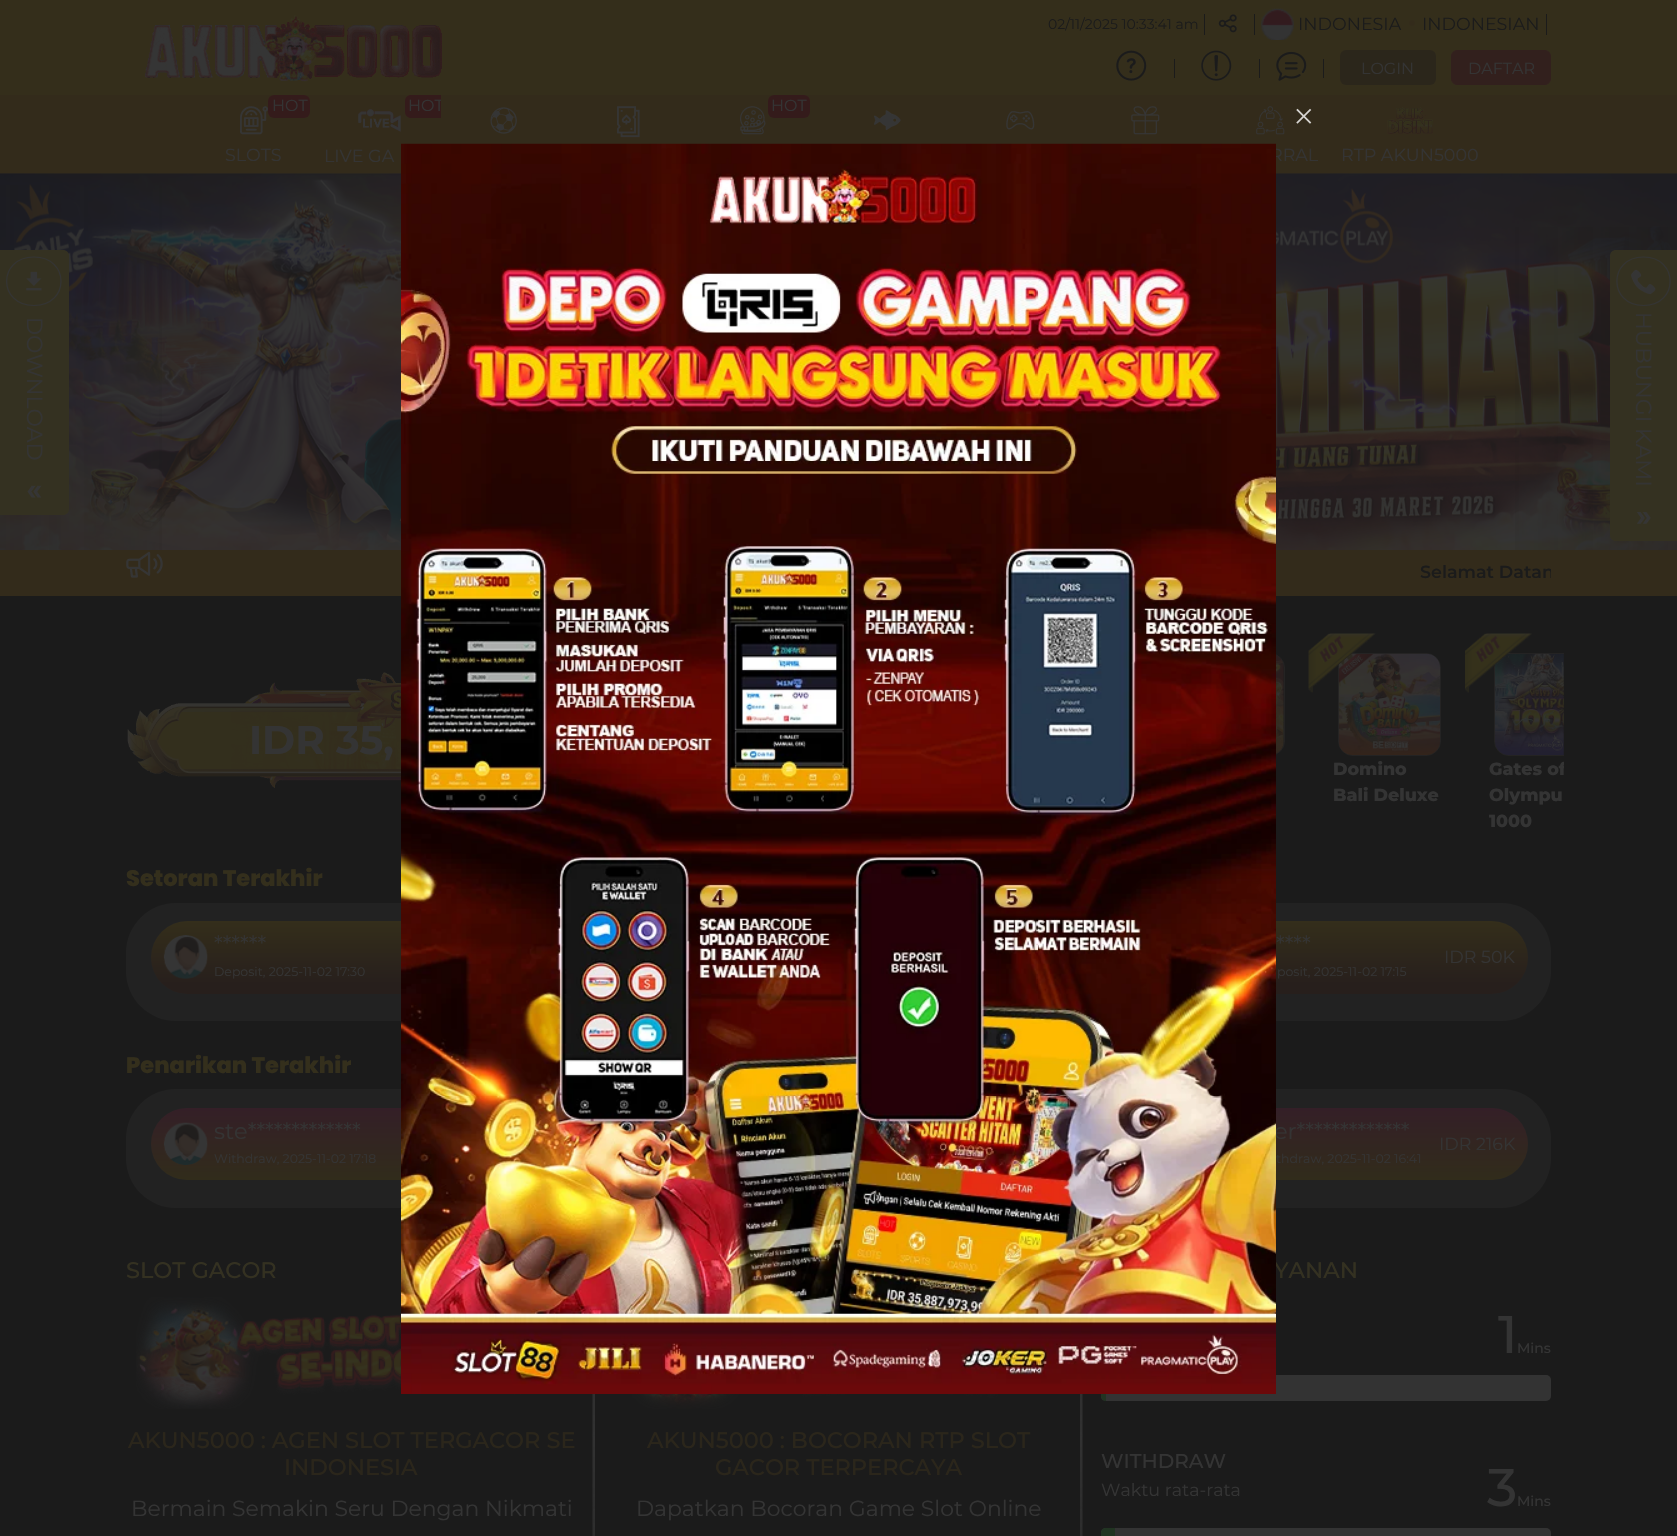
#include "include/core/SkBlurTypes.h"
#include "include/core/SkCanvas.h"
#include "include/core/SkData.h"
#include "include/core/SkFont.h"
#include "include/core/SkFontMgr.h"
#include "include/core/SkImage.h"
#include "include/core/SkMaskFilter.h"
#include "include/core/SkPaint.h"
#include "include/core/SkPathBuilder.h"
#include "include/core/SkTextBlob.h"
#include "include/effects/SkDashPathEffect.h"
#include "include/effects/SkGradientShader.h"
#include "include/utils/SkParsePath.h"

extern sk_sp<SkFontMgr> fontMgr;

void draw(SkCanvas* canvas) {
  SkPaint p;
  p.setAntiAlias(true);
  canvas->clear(SkColorSetRGB(27, 27, 27));
  p.setColor(SkColorSetRGB(52, 46, 27));
  canvas->drawRect(SkRect::MakeLTRB(0, 0, 1677, 95), p);
  canvas->drawImageRect(SkImages::DeferredFromEncodedData(SkData::MakeFromFileName("images/1.png")), SkRect::MakeLTRB(145, 15, 442, 82), SkSamplingOptions());
  p.setColor(SkColorSetRGB(27, 27, 27));
  canvas->drawRect(SkRect::MakeLTRB(1204, 14, 1205, 35), p);
  canvas->drawImageRect(SkImages::DeferredFromEncodedData(SkData::MakeFromFileName("images/2.png")), SkRect::MakeLTRB(1218, 14, 1237, 33), SkSamplingOptions());
  canvas->drawRect(SkRect::MakeLTRB(1254, 14, 1255, 35), p);
  canvas->drawImageRect(SkImages::DeferredFromEncodedData(SkData::MakeFromFileName("images/3.png")), SkRect::MakeLTRB(1261, 8, 1294, 40), SkSamplingOptions());
  p.setColor(SkColorSetRGB(51, 43, 27));
  canvas->drawCircle(1412, 23, 3, p);
  p.setColor(SkColorSetRGB(27, 27, 27));
  canvas->drawRect(SkRect::MakeLTRB(1546, 14, 1547, 35), p);
  canvas->drawImageRect(SkImages::DeferredFromEncodedData(SkData::MakeFromFileName("images/4.png")), SkRect::MakeLTRB(1116, 50, 1147, 81), SkSamplingOptions());
  canvas->drawRect(SkRect::MakeLTRB(1174, 59, 1175, 78), p);
  canvas->drawImageRect(SkImages::DeferredFromEncodedData(SkData::MakeFromFileName("images/5.png")), SkRect::MakeLTRB(1201, 50, 1232, 81), SkSamplingOptions());
  canvas->drawRect(SkRect::MakeLTRB(1259, 59, 1260, 78), p);
  canvas->drawImageRect(SkImages::DeferredFromEncodedData(SkData::MakeFromFileName("images/6.png")), SkRect::MakeLTRB(1276, 51, 1307, 81), SkSamplingOptions());
  canvas->drawRect(SkRect::MakeLTRB(1323, 59, 1324, 78), p);
  p.setColor(SkColorSetRGB(43, 38, 27));
  canvas->drawRoundRect(SkRect::MakeLTRB(1340, 50, 1436, 85), 6, 6, p);
  p.setColor(SkColorSetRGB(50, 32, 29));
  canvas->drawRoundRect(SkRect::MakeLTRB(1451.5f, 50.5f, 1550.5f, 84.5f), 5.5f, 5.5f, p);
  p.setStyle(SkPaint::kStroke_Style);
  p.setStrokeWidth(1);
  canvas->drawRoundRect(SkRect::MakeLTRB(1451.5f, 50.5f, 1550.5f, 84.5f), 5.5f, 5.5f, p);
  p.setStyle(SkPaint::kFill_Style);
  p.setColor(SkColorSetRGB(51, 43, 27));
  canvas->drawRect(SkRect::MakeLTRB(0, 95, 1677, 174), p);
  canvas->drawImageRect(SkImages::DeferredFromEncodedData(SkData::MakeFromFileName("images/7.png")), SkRect::MakeLTRB(240, 106, 268, 135), SkSamplingOptions());
  p.setColor(SkColorSetRGB(52, 27, 27));
  canvas->drawRoundRect(SkRect::MakeLTRB(268, 95, 310, 118), 6, 6, p);
  canvas->drawPath(SkPathBuilder().moveTo(411, 95).lineTo(441, 95).lineTo(441, 118).lineTo(411, 118).cubicTo(407.5f, 118, 405, 115.5f, 405, 112).lineTo(405, 101).cubicTo(405, 97.5f, 407.5f, 95, 411, 95).close().detach(), p);
  canvas->drawImageRect(SkImages::DeferredFromEncodedData(SkData::MakeFromFileName("images/8.png")), SkRect::MakeLTRB(358, 109, 401, 132), SkSamplingOptions());
  canvas->drawImageRect(SkImages::DeferredFromEncodedData(SkData::MakeFromFileName("images/9.png")), SkRect::MakeLTRB(490, 107, 517, 134), SkSamplingOptions());
  canvas->drawImageRect(SkImages::DeferredFromEncodedData(SkData::MakeFromFileName("images/10.png")), SkRect::MakeLTRB(617, 106, 640, 138), SkSamplingOptions());
  canvas->drawImageRect(SkImages::DeferredFromEncodedData(SkData::MakeFromFileName("images/11.png")), SkRect::MakeLTRB(740, 106, 766, 135), SkSamplingOptions());
  canvas->drawRoundRect(SkRect::MakeLTRB(768, 95, 810, 118), 6, 6, p);
  canvas->drawImageRect(SkImages::DeferredFromEncodedData(SkData::MakeFromFileName("images/12.png")), SkRect::MakeLTRB(874, 110, 901, 131), SkSamplingOptions());
  canvas->drawImageRect(SkImages::DeferredFromEncodedData(SkData::MakeFromFileName("images/13.png")), SkRect::MakeLTRB(1006, 111, 1035, 130), SkSamplingOptions());
  canvas->drawImageRect(SkImages::DeferredFromEncodedData(SkData::MakeFromFileName("images/14.png")), SkRect::MakeLTRB(1131, 106, 1160, 135), SkSamplingOptions());
  canvas->drawImageRect(SkImages::DeferredFromEncodedData(SkData::MakeFromFileName("images/15.png")), SkRect::MakeLTRB(1256, 106, 1285, 135), SkSamplingOptions());
  canvas->drawImageRect(SkImages::DeferredFromEncodedData(SkData::MakeFromFileName("images/16.png")), SkRect::MakeLTRB(1387, 107, 1433, 134), SkSamplingOptions());
  canvas->drawImageRect(SkImages::DeferredFromEncodedData(SkData::MakeFromFileName("images/23.png")), SkRect::MakeLTRB(0, 173, 1677, 550), SkSamplingOptions());
  {
    const SkColor colors[] = {SkColorSetARGB(64, 27, 27, 27), SkColorSetARGB(0, 27, 27, 27)};
    const float stops[] = {0, 1};
    const SkPoint ends[] = {{0, 362}, {251, 362}};
    p.setShader(SkGradientShader::MakeLinear(ends, colors, stops, 2, SkTileMode::kClamp));
    p.setAlpha(255);
  }
  canvas->drawRect(SkRect::MakeLTRB(0, 185, 162, 550), p);
  p.setShader(nullptr);
  p.setColor(SkColorSetRGB(52, 49, 33));
  canvas->drawPath(SkPathBuilder().moveTo(0, 250).lineTo(63, 250).cubicTo(66.5f, 250, 69, 252.5f, 69, 256).lineTo(69, 509).cubicTo(69, 512.5f, 66.5f, 515, 63, 515).lineTo(0, 515).close().detach(), p);
  p.setStyle(SkPaint::kStroke_Style);
  p.setStrokeWidth(1.2f);
  p.setColor(SkColorSetRGB(52, 52, 52));
  canvas->drawPath(SkPathBuilder().moveTo(34, 257).cubicTo(70, 257, 70, 305.5f, 34, 305.5f).cubicTo(-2.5f, 305.5f, -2.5f, 257, 34, 257).close().detach(), p);
  canvas->drawImageRect(SkImages::DeferredFromEncodedData(SkData::MakeFromFileName("images/17.png")), SkRect::MakeLTRB(26, 271, 42, 291), SkSamplingOptions());
  canvas->drawImageRect(SkImages::DeferredFromEncodedData(SkData::MakeFromFileName("images/18.png")), SkRect::MakeLTRB(27, 485, 42, 498), SkSamplingOptions());
  canvas->drawImageRect(SkImages::DeferredFromEncodedData(SkData::MakeFromFileName("images/19.png")), SkRect::MakeLTRB(1296, 108, 1312, 124), SkSamplingOptions());
  p.setStyle(SkPaint::kFill_Style);
  {
    const SkColor colors[] = {SkColorSetARGB(0, 27, 27, 27), SkColorSetARGB(64, 27, 27, 27)};
    const float stops[] = {0, 1};
    const SkPoint ends[] = {{1426, 362}, {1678, 362}};
    p.setShader(SkGradientShader::MakeLinear(ends, colors, stops, 2, SkTileMode::kClamp));
    p.setAlpha(255);
  }
  canvas->drawRect(SkRect::MakeLTRB(1515, 227, 1677, 550), p);
  p.setShader(nullptr);
  p.setColor(SkColorSetRGB(52, 49, 33));
  canvas->drawPath(SkPathBuilder().moveTo(1616, 250).lineTo(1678, 250).lineTo(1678, 541).lineTo(1616, 541).cubicTo(1612.5f, 541, 1610, 538.5f, 1610, 535).lineTo(1610, 256).cubicTo(1610, 252.5f, 1612.5f, 250, 1616, 250).close().detach(), p);
  p.setStyle(SkPaint::kStroke_Style);
  p.setColor(SkColorSetRGB(52, 52, 52));
  canvas->drawPath(SkPathBuilder().moveTo(1643.5f, 257).cubicTo(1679, 257, 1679, 305.5f, 1643.5f, 305.5f).cubicTo(1608, 305.5f, 1608, 257, 1643.5f, 257).close().detach(), p);
  canvas->drawImageRect(SkImages::DeferredFromEncodedData(SkData::MakeFromFileName("images/21.png")), SkRect::MakeLTRB(1631, 269, 1656, 295), SkSamplingOptions());
  canvas->drawImageRect(SkImages::DeferredFromEncodedData(SkData::MakeFromFileName("images/22.png")), SkRect::MakeLTRB(1637, 512, 1651, 524), SkSamplingOptions());
  p.setStyle(SkPaint::kFill_Style);
  p.setColor(SkColorSetRGB(51, 43, 27));
  canvas->drawRect(SkRect::MakeLTRB(0, 550, 1677, 596), p);
  canvas->drawImageRect(SkImages::DeferredFromEncodedData(SkData::MakeFromFileName("images/24.png")), SkRect::MakeLTRB(126, 551, 163, 578), SkSamplingOptions());
  canvas->drawImageRect(SkImages::DeferredFromEncodedData(SkData::MakeFromFileName("images/25.png")), SkRect::MakeLTRB(127, 672, 401, 788), SkSamplingOptions());
  p.setStyle(SkPaint::kStroke_Style);
  p.setStrokeWidth(1);
  p.setColor(SkColorSetRGB(36, 35, 35));
  canvas->drawRoundRect(SkRect::MakeLTRB(1338.5f, 653.5f, 1440.5f, 755.5f), 14.5f, 14.5f, p);
  canvas->drawImageRect(SkImages::DeferredFromEncodedData(SkData::MakeFromFileName("images/30.png")), SkRect::MakeLTRB(1338, 653, 1440, 755), SkSamplingOptions());
  canvas->drawImageRect(SkImages::DeferredFromEncodedData(SkData::MakeFromFileName("images/26.png")), SkRect::MakeLTRB(1308, 633, 1376, 693), SkSamplingOptions());
  canvas->save();
  canvas->clipRect(SkRect::MakeLTRB(845, 634, 1564, 859));
  canvas->drawRoundRect(SkRect::MakeLTRB(1494.5f, 653.5f, 1597.5f, 755.5f), 14.5f, 14.5f, p);
  canvas->restore();
  canvas->drawImageRect(SkImages::DeferredFromEncodedData(SkData::MakeFromFileName("images/32.png")), SkRect::MakeLTRB(1495, 653, 1564, 755), SkSamplingOptions());
  canvas->drawImageRect(SkImages::DeferredFromEncodedData(SkData::MakeFromFileName("images/27.png")), SkRect::MakeLTRB(1465, 633, 1532, 693), SkSamplingOptions());
  canvas->drawRoundRect(SkRect::MakeLTRB(1181.5f, 653.5f, 1284.5f, 755.5f), 14.5f, 14.5f, p);
  canvas->drawImageRect(SkImages::DeferredFromEncodedData(SkData::MakeFromFileName("images/28.png")), SkRect::MakeLTRB(1276, 655, 1284, 754), SkSamplingOptions());
  canvas->drawImageRect(SkImages::DeferredFromEncodedData(SkData::MakeFromFileName("images/29.png")), SkRect::MakeLTRB(1308, 633, 1376, 693), SkSamplingOptions());
  canvas->drawImageRect(SkImages::DeferredFromEncodedData(SkData::MakeFromFileName("images/31.png")), SkRect::MakeLTRB(1465, 633, 1532, 693), SkSamplingOptions());
  p.setStyle(SkPaint::kFill_Style);
  p.setColor(SkColorSetRGB(34, 34, 34));
  canvas->drawRoundRect(SkRect::MakeLTRB(126, 903, 1551, 1021), 50, 50, p);
  {
    const SkColor colors[] = {SkColorSetRGB(52, 46, 27), SkColorSetRGB(39, 31, 28)};
    const float stops[] = {0, 0.87f};
    const SkPoint ends[] = {{317, 921}, {317, 994}};
    p.setShader(SkGradientShader::MakeLinear(ends, colors, stops, 2, SkTileMode::kClamp));
    p.setAlpha(255);
  }
  canvas->drawRoundRect(SkRect::MakeLTRB(151, 921, 483, 994), 36.5f, 36.5f, p);
  canvas->drawImageRect(SkImages::DeferredFromEncodedData(SkData::MakeFromFileName("images/33.png")), SkRect::MakeLTRB(163, 935, 208, 979), SkSamplingOptions());
  {
    const SkColor colors[] = {SkColorSetRGB(52, 46, 27), SkColorSetRGB(39, 31, 28)};
    const float stops[] = {0, 0.87f};
    const SkPoint ends[] = {{1362, 921}, {1362, 994}};
    p.setShader(SkGradientShader::MakeLinear(ends, colors, stops, 2, SkTileMode::kClamp));
    p.setAlpha(255);
  }
  canvas->drawRoundRect(SkRect::MakeLTRB(1196, 921, 1528, 994), 36.5f, 36.5f, p);
  p.setShader(nullptr);
  p.setColor(SkColorSetRGB(34, 34, 34));
  canvas->drawRoundRect(SkRect::MakeLTRB(126, 1089, 1551, 1208), 50, 50, p);
  {
    const SkColor colors[] = {SkColorSetRGB(52, 31, 39), SkColorSetRGB(49, 44, 27)};
    const float stops[] = {0, 1};
    const SkPoint ends[] = {{317, 1108}, {317, 1180}};
    p.setShader(SkGradientShader::MakeLinear(ends, colors, stops, 2, SkTileMode::kClamp));
    p.setAlpha(255);
  }
  canvas->drawRoundRect(SkRect::MakeLTRB(151, 1108, 483, 1180), 36, 36, p);
  canvas->drawImageRect(SkImages::DeferredFromEncodedData(SkData::MakeFromFileName("images/34.png")), SkRect::MakeLTRB(163, 1122, 208, 1165), SkSamplingOptions());
  {
    const SkColor colors[] = {SkColorSetRGB(52, 31, 39), SkColorSetRGB(49, 44, 27)};
    const float stops[] = {0, 1};
    const SkPoint ends[] = {{1362, 1108}, {1362, 1180}};
    p.setShader(SkGradientShader::MakeLinear(ends, colors, stops, 2, SkTileMode::kClamp));
    p.setAlpha(255);
  }
  canvas->drawRoundRect(SkRect::MakeLTRB(1196, 1108, 1528, 1180), 36, 36, p);
  canvas->drawImageRect(SkImages::DeferredFromEncodedData(SkData::MakeFromFileName("images/35.png")), SkRect::MakeLTRB(136, 1297, 521, 1409), SkSamplingOptions());
  canvas->drawImageRect(SkImages::DeferredFromEncodedData(SkData::MakeFromFileName("images/36.png")), SkRect::MakeLTRB(592, 1394, 595, 1536), SkSamplingOptions());
  canvas->drawImageRect(SkImages::DeferredFromEncodedData(SkData::MakeFromFileName("images/37.png")), SkRect::MakeLTRB(632, 1394, 999, 1409), SkSamplingOptions());
  canvas->drawImageRect(SkImages::DeferredFromEncodedData(SkData::MakeFromFileName("images/38.png")), SkRect::MakeLTRB(1080, 1394, 1083, 1536), SkSamplingOptions());
  p.setShader(nullptr);
  p.setColor(SkColorSetRGB(51, 51, 51));
  canvas->drawRoundRect(SkRect::MakeLTRB(1101, 1375, 1551, 1401), 5, 5, p);
  p.setColor(SkColorSetRGB(33, 52, 34));
  canvas->drawPath(SkPathBuilder().moveTo(1106, 1375).lineTo(1106, 1401).cubicTo(1103, 1401, 1101, 1399, 1101, 1396).lineTo(1101, 1380).cubicTo(1101, 1377, 1103, 1375, 1106, 1375).close().detach(), p);
  canvas->save();
  canvas->clipPath(SkPathBuilder().moveTo(1106, 1375).lineTo(1546, 1375).cubicTo(1549, 1375, 1551, 1377, 1551, 1380).lineTo(1551, 1396).cubicTo(1551, 1399, 1549, 1401, 1546, 1401).lineTo(1106, 1401).cubicTo(1103, 1401, 1101, 1399, 1101, 1396).lineTo(1101, 1380).cubicTo(1101, 1377, 1103, 1375, 1106, 1375).close().detach(), true);
  p.setColor(SkColorSetARGB(38, 27, 27, 27));
  canvas->drawRect(SkRect::MakeLTRB(1101, 1400, 1106, 1401), p);
  canvas->restore();
  p.setColor(SkColorSetRGB(51, 51, 51));
  canvas->drawRoundRect(SkRect::MakeLTRB(1101, 1528, 1551, 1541), 5, 5, p);
  p.setColor(SkColorSetRGB(33, 52, 34));
  canvas->drawPath(SkPathBuilder().moveTo(1106, 1528).lineTo(1115, 1528).lineTo(1115, 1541).lineTo(1106, 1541).cubicTo(1103, 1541, 1101, 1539, 1101, 1536).lineTo(1101, 1533).cubicTo(1101, 1530, 1103, 1528, 1106, 1528).close().detach(), p);
  SkFont font1(fontMgr->matchFamilyStyle("Montserrat", SkFontStyle::Normal()), 14);
  font1.setSubpixel(true);
  p.setColor(SkColorSetRGB(27, 27, 27));
  canvas->drawString("02/11/2025 10:33:41 am", 1048, 29, font1, p);
  SkFont font2(fontMgr->matchFamilyStyle("Montserrat", SkFontStyle::Normal()), 17.5f);
  font2.setSubpixel(true);
  canvas->drawString("INDONESIA", 1298, 30, font2, p);
  canvas->drawString("INDONESIAN", 1422, 30, font2, p);
  SkFont font3(fontMgr->matchFamilyStyle("Montserrat", SkFontStyle::Normal()), 16);
  font3.setSubpixel(true);
  p.setColor(SkColorSetRGB(52, 52, 52));
  canvas->drawString("LOGIN", 1361, 74, font3, p);
  canvas->drawString("DAFTAR", 1468, 74, font3, p);
  canvas->drawString("HOT", 272, 111, font3, p);
  canvas->drawString("SLOTS", 225, 161, font2, p);
  canvas->save();
  canvas->clipRect(SkRect::MakeLTRB(316, 95, 441, 174));
  canvas->drawString("HOT", 408, 111, font3, p);
  canvas->restore();
  canvas->drawString("LIVE GA", 324, 162, font2, p);
  canvas->drawString("HOT", 771, 111, font3, p);
  canvas->drawString("RRAL", 1270, 161, font2, p);
  canvas->drawString("RTP AKUN5000", 1341, 161, font2, p);
  SkFont font4(fontMgr->matchFamilyStyle("Montserrat", SkFontStyle::Normal()), 21.9f);
  font4.setSubpixel(true);
  canvas->save();
  canvas->rotate(90, 27, 317);
  canvas->drawString("DOWNLOAD", 27, 317, font4, p);
  canvas->restore();
  canvas->save();
  canvas->rotate(90, 1636, 312);
  canvas->drawString("HUBUNGI KAMI", 1636, 312, font4, p);
  canvas->restore();
  canvas->save();
  canvas->clipRect(SkRect::MakeLTRB(163, 559, 1551, 585));
  SkFont font5(fontMgr->matchFamilyStyle("Montserrat", SkFontStyle(600, SkFontStyle::kNormal_Width, SkFontStyle::kUpright_Slant)), 17.5f);
  font5.setSubpixel(true);
  p.setColor(SkColorSetRGB(27, 27, 27));
  canvas->drawString("Selamat Datan", 1420, 578, font5, p);
  canvas->restore();
  SkFont font6(fontMgr->matchFamilyStyle("Montserrat", SkFontStyle::Bold()), 40);
  font6.setSubpixel(true);
  p.setColor(SkColorSetRGB(52, 52, 52));
  canvas->drawString("IDR 35,", 249, 754, font6, p);
  SkFont font7(fontMgr->matchFamilyStyle("Montserrat", SkFontStyle(800, SkFontStyle::kNormal_Width, SkFontStyle::kUpright_Slant)), 17.5f);
  font7.setSubpixel(true);
  canvas->drawString("Domino", 1333, 775, font7, p);
  canvas->drawString("Bali Deluxe", 1333, 801, font7, p);
  canvas->save();
  canvas->clipRect(SkRect::MakeLTRB(1489, 756, 1564, 835));
  canvas->drawString("Gates of", 1489, 775, font7, p);
  canvas->restore();
  canvas->drawString("Olympu", 1489, 801, font7, p);
  canvas->save();
  canvas->clipRect(SkRect::MakeLTRB(1489, 756, 1564, 835));
  canvas->drawString("1000", 1489, 827, font7, p);
  canvas->restore();
  SkFont font8(fontMgr->matchFamilyStyle("Poppins", SkFontStyle(800, SkFontStyle::kNormal_Width, SkFontStyle::kUpright_Slant)), 22.5f);
  font8.setSubpixel(true);
  {
    const SkColor colors[] = {SkColorSetRGB(52, 47, 28), SkColorSetRGB(52, 33, 32)};
    const float stops[] = {0.77f, 0.95f};
    const SkPoint ends[] = {{839, 865}, {839, 892}};
    p.setShader(SkGradientShader::MakeLinear(ends, colors, stops, 2, SkTileMode::kClamp));
    p.setAlpha(255);
  }
  canvas->drawString("Setoran Terakhir", 126, 886, font8, p);
  SkFont font9(fontMgr->matchFamilyStyle("Montserrat", SkFontStyle::Normal()), 22.5f);
  font9.setSubpixel(true);
  p.setShader(nullptr);
  p.setColor(SkColorSetRGB(52, 52, 52));
  canvas->drawString("******", 214, 952, font9, p);
  SkFont font10(fontMgr->matchFamilyStyle("Montserrat", SkFontStyle::Normal()), 12.5f);
  font10.setSubpixel(true);
  canvas->drawString("Deposit, 2025-11-02 17:30", 214, 976, font10, p);
  canvas->drawString("****", 1276, 952, font9, p);
  canvas->drawString("posit, 2025-11-02 17:15", 1277, 976, font10, p);
  canvas->drawString("IDR 50K", 1444, 963, font2, p);
  {
    const SkColor colors[] = {SkColorSetRGB(52, 47, 28), SkColorSetRGB(52, 33, 32)};
    const float stops[] = {0.77f, 0.95f};
    const SkPoint ends[] = {{839, 1052}, {839, 1079}};
    p.setShader(SkGradientShader::MakeLinear(ends, colors, stops, 2, SkTileMode::kClamp));
    p.setAlpha(255);
  }
  canvas->drawString("Penarikan Terakhir", 126, 1073, font8, p);
  p.setShader(nullptr);
  p.setColor(SkColorSetRGB(52, 52, 52));
  canvas->drawString("ste*************", 214, 1139, font9, p);
  canvas->drawString("Withdraw, 2025-11-02 17:18", 214, 1163, font10, p);
  canvas->drawString("er*************", 1274, 1139, font9, p);
  canvas->drawString("thdraw, 2025-11-02 16:41", 1276, 1163, font10, p);
  canvas->drawString("IDR 216K", 1439, 1150, font2, p);
  SkFont font11(fontMgr->matchFamilyStyle("Montserrat", SkFontStyle(500, SkFontStyle::kNormal_Width, SkFontStyle::kUpright_Slant)), 22.5f);
  font11.setSubpixel(true);
  p.setColor(SkColorSetRGB(52, 49, 33));
  canvas->drawString("SLOT GACOR", 126, 1278, font11, p);
  p.setColor(SkColorSetRGB(43, 38, 27));
  canvas->drawString("AKUN5000 : AGEN SLOT TERGACOR SE", 128, 1448, font11, p);
  canvas->drawString("INDONESIA", 284, 1475, font11, p);
  p.setColor(SkColorSetRGB(52, 52, 52));
  canvas->drawString("Bermain Semakin Seru Dengan Nikmati", 131, 1516, font4, p);
  p.setColor(SkColorSetRGB(43, 38, 27));
  canvas->drawString("AKUN5000 : BOCORAN RTP SLOT", 647, 1448, font11, p);
  canvas->drawString("GACOR TERPERCAYA", 715, 1475, font11, p);
  p.setColor(SkColorSetRGB(52, 52, 52));
  canvas->drawString("Dapatkan Bocoran Game Slot Online", 636, 1516, font4, p);
  p.setColor(SkColorSetRGB(52, 49, 33));
  canvas->drawString("YANAN", 1274, 1278, font11, p);
  canvas->drawImageRect(SkImages::DeferredFromEncodedData(SkData::MakeFromFileName("images/20.png")), SkRect::MakeLTRB(401, 143, 1276, 1394), SkSamplingOptions());
  SkFont font12(fontMgr->matchFamilyStyle("Montserrat", SkFontStyle(500, SkFontStyle::kNormal_Width, SkFontStyle::kUpright_Slant)), 53);
  font12.setSubpixel(true);
  p.setColor(SkColorSetRGB(52, 52, 52));
  canvas->drawString("1", 1498, 1353, font12, p);
  SkFont font13(fontMgr->matchFamilyStyle("Montserrat", SkFontStyle(500, SkFontStyle::kNormal_Width, SkFontStyle::kUpright_Slant)), 14);
  font13.setSubpixel(true);
  canvas->drawString("Mins", 1517, 1353, font13, p);
  SkFont font14(fontMgr->matchFamilyStyle("Montserrat", SkFontStyle(500, SkFontStyle::kNormal_Width, SkFontStyle::kUpright_Slant)), 20);
  font14.setSubpixel(true);
  canvas->drawString("WITHDRAW", 1101, 1468, font14, p);
  canvas->drawString("Waktu rata-rata", 1101, 1496, font2, p);
  canvas->drawString("3", 1487, 1506, font12, p);
  canvas->drawString("Mins", 1517, 1506, font13, p);
}
